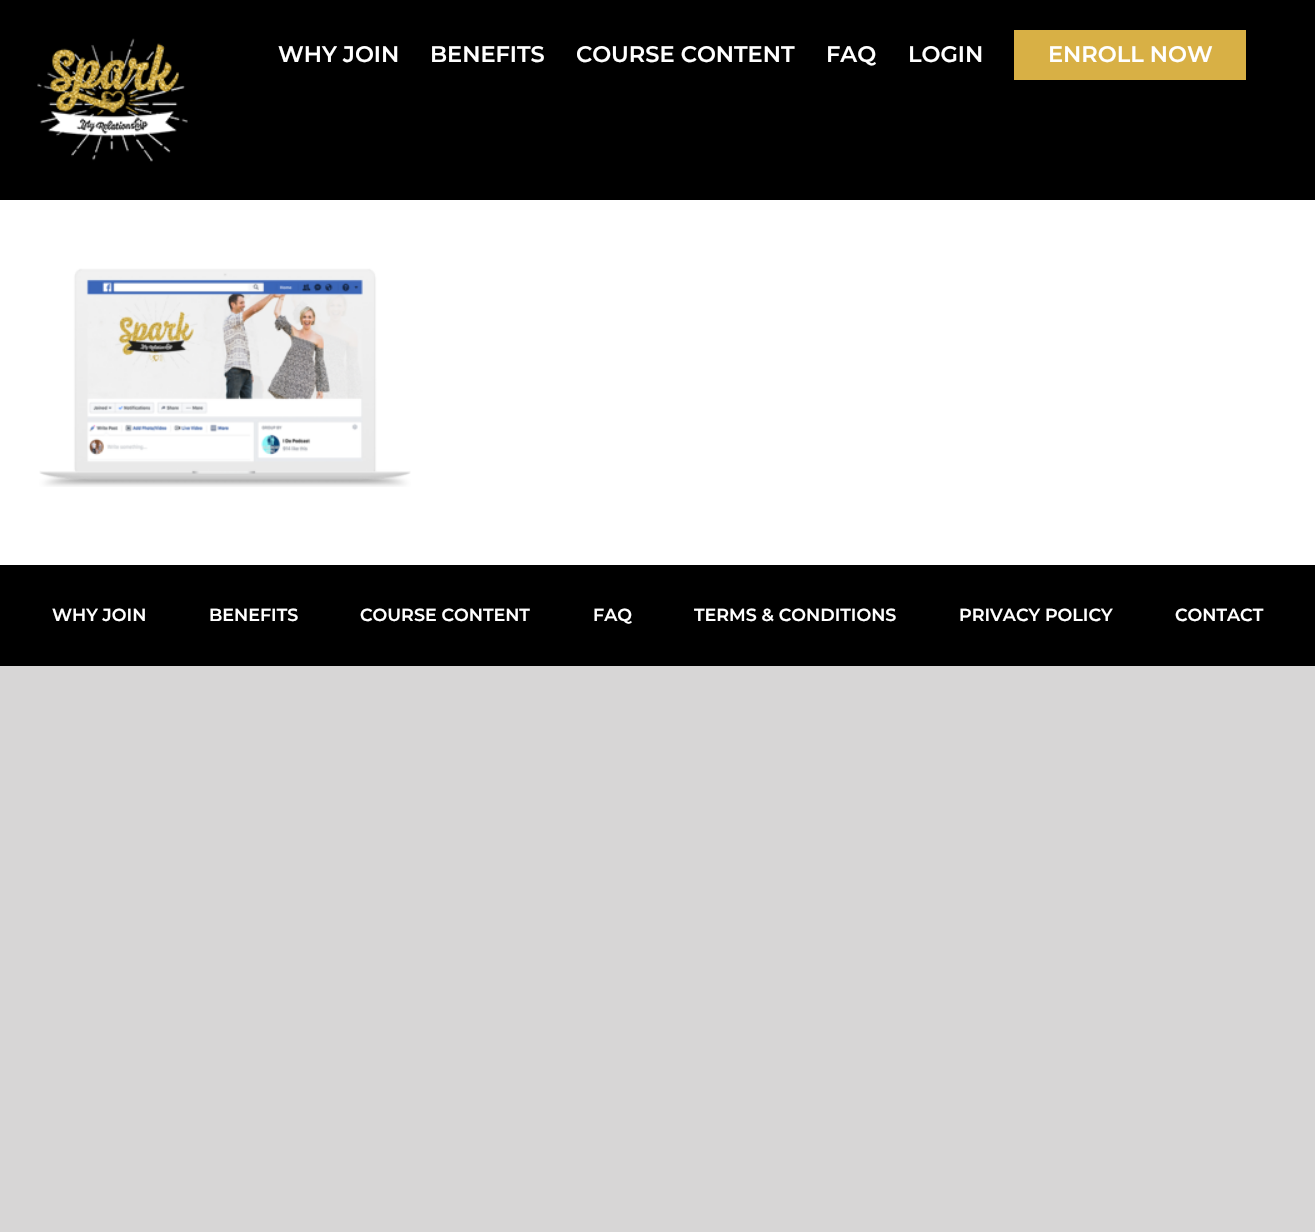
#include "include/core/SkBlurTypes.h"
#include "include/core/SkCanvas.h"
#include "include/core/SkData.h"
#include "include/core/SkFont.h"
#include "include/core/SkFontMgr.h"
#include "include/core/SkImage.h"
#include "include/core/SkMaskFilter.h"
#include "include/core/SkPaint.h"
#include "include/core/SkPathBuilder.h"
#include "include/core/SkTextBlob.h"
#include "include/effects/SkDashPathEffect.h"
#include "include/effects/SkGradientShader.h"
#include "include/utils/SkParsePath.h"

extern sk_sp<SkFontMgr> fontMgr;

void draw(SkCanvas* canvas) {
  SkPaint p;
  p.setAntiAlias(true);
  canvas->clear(SkColorSetRGB(215, 214, 214));
  p.setColor(SK_ColorWHITE);
  canvas->drawRect(SkRect::MakeLTRB(0, 200, 1315, 565), p);
  p.setColor(SK_ColorBLACK);
  canvas->drawRect(SkRect::MakeLTRB(0, 0, 1315, 200), p);
  canvas->drawImageRect(SkImages::DeferredFromEncodedData(SkData::MakeFromFileName("images/1.png")), SkRect::MakeLTRB(37, 38, 188, 162), SkSamplingOptions());
  p.setColor(SkColorSetRGB(216, 176, 69));
  canvas->drawRect(SkRect::MakeLTRB(1014, 30, 1246, 80), p);
  canvas->drawImageRect(SkImages::DeferredFromEncodedData(SkData::MakeFromFileName("images/2.png")), SkRect::MakeLTRB(39, 268, 411, 487), SkSamplingOptions());
  p.setColor(SK_ColorBLACK);
  canvas->drawRect(SkRect::MakeLTRB(0, 565, 1315, 666), p);
  SkFont font1(fontMgr->matchFamilyStyle("Montserrat", SkFontStyle(600, SkFontStyle::kNormal_Width, SkFontStyle::kUpright_Slant)), 22.5f);
  font1.setSubpixel(true);
  p.setColor(SK_ColorWHITE);
  canvas->drawString("WHY JOIN", 278, 62, font1, p);
  canvas->drawString("BENEFITS", 430, 62, font1, p);
  canvas->drawString("COURSE CONTENT", 576, 62, font1, p);
  canvas->drawString("FAQ", 826, 62, font1, p);
  canvas->drawString("LOGIN", 908, 62, font1, p);
  canvas->drawString("ENROLL NOW", 1048, 62, font1, p);
  SkFont font2(fontMgr->matchFamilyStyle("Montserrat", SkFontStyle(600, SkFontStyle::kNormal_Width, SkFontStyle::kUpright_Slant)), 17.5f);
  font2.setSubpixel(true);
  canvas->drawString("WHY JOIN", 52, 621, font2, p);
  canvas->drawString("BENEFITS", 209, 621, font2, p);
  canvas->drawString("COURSE CONTENT", 360, 621, font2, p);
  canvas->drawString("FAQ", 593, 621, font2, p);
  canvas->drawString("TERMS & CONDITIONS", 694, 621, font2, p);
  canvas->drawString("PRIVACY POLICY", 959, 621, font2, p);
  canvas->drawString("CONTACT", 1175, 621, font2, p);
}
